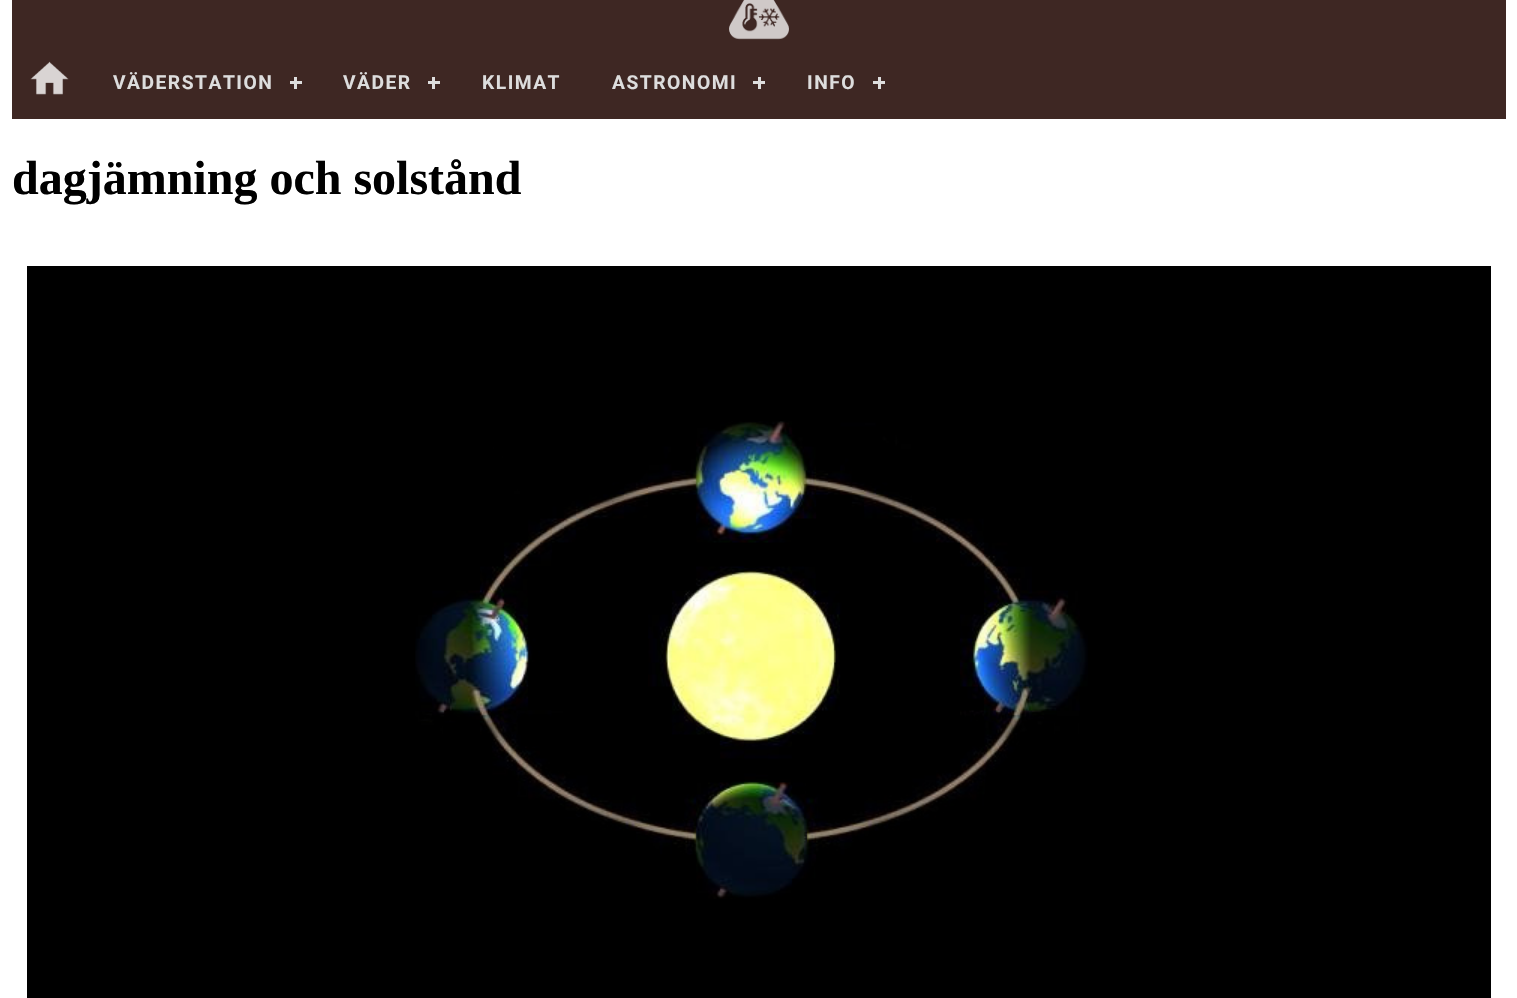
#include "include/core/SkBlurTypes.h"
#include "include/core/SkCanvas.h"
#include "include/core/SkData.h"
#include "include/core/SkFont.h"
#include "include/core/SkFontMgr.h"
#include "include/core/SkImage.h"
#include "include/core/SkMaskFilter.h"
#include "include/core/SkPaint.h"
#include "include/core/SkPathBuilder.h"
#include "include/core/SkTextBlob.h"
#include "include/effects/SkDashPathEffect.h"
#include "include/effects/SkGradientShader.h"
#include "include/utils/SkParsePath.h"

extern sk_sp<SkFontMgr> fontMgr;

void draw(SkCanvas* canvas) {
  SkPaint p;
  p.setAntiAlias(true);
  auto spacedText = [&](const char* s, float x, float y, const SkFont& font, const SkPaint& ink, float letter, float word) {
    std::vector<SkGlyphID> glyphs(font.countText(s, strlen(s), SkTextEncoding::kUTF8));
    std::vector<float> xs(glyphs.size());
    font.textToGlyphs(s, strlen(s), SkTextEncoding::kUTF8, glyphs);
    font.getXPos(glyphs, xs, x);
    float extra = 0;
    for (size_t i = 0; i < glyphs.size(); i++) {
      xs[i] += extra;
      extra += letter + word * (glyphs[i] == font.unicharToGlyph(' '));
    }
    canvas->drawTextBlob(SkTextBlob::MakeFromPosHGlyphs(glyphs, xs, y, font), 0, 0, ink);
  };
  canvas->clear(SK_ColorWHITE);
  p.setColor(SkColorSetRGB(62, 39, 35));
  canvas->drawRect(SkRect::MakeLTRB(12, 0, 1506, 119), p);
  canvas->drawImageRect(SkImages::DeferredFromEncodedData(SkData::MakeFromFileName("images/1.png")), SkRect::MakeLTRB(729, 0, 789, 40), SkSamplingOptions());
  canvas->drawImageRect(SkImages::DeferredFromEncodedData(SkData::MakeFromFileName("images/2.png")), SkRect::MakeLTRB(30, 61, 69, 95), SkSamplingOptions());
  p.setColor(SkColorSetRGB(221, 221, 221));
  canvas->drawRect(SkRect::MakeLTRB(294, 77, 297, 89), p);
  canvas->drawRect(SkRect::MakeLTRB(290, 81, 302, 84), p);
  canvas->drawRect(SkRect::MakeLTRB(432, 77, 435, 89), p);
  canvas->drawRect(SkRect::MakeLTRB(428, 81, 440, 84), p);
  canvas->drawRect(SkRect::MakeLTRB(758, 77, 761, 89), p);
  canvas->drawRect(SkRect::MakeLTRB(753, 81, 765, 84), p);
  canvas->drawRect(SkRect::MakeLTRB(878, 77, 881, 89), p);
  canvas->drawRect(SkRect::MakeLTRB(873, 81, 885, 84), p);
  p.setColor(SK_ColorBLACK);
  canvas->drawRect(SkRect::MakeLTRB(27, 266, 1491, 998), p);
  canvas->drawImageRect(SkImages::DeferredFromEncodedData(SkData::MakeFromFileName("images/3.png")), SkRect::MakeLTRB(415, 421, 1088, 899), SkSamplingOptions());
  SkFont font1(fontMgr->matchFamilyStyle("Roboto", SkFontStyle::Bold()), 19.25f);
  font1.setSubpixel(true);
  p.setColor(SkColorSetRGB(221, 221, 221));
  spacedText("VÄDERSTATION", 113, 89, font1, p, 1.5f, 0);
  spacedText("VÄDER", 343, 89, font1, p, 1.5f, 0);
  spacedText("KLIMAT", 482, 89, font1, p, 1.5f, 0);
  spacedText("ASTRONOMI", 612, 89, font1, p, 1.5f, 0);
  spacedText("INFO", 807, 89, font1, p, 1.5f, 0);
  SkFont font2(fontMgr->matchFamilyStyle("Liberation Serif", SkFontStyle::Bold()), 48);
  font2.setSubpixel(true);
  p.setColor(SK_ColorBLACK);
  canvas->drawString("dagjämning och solstånd", 12, 194, font2, p);
}
